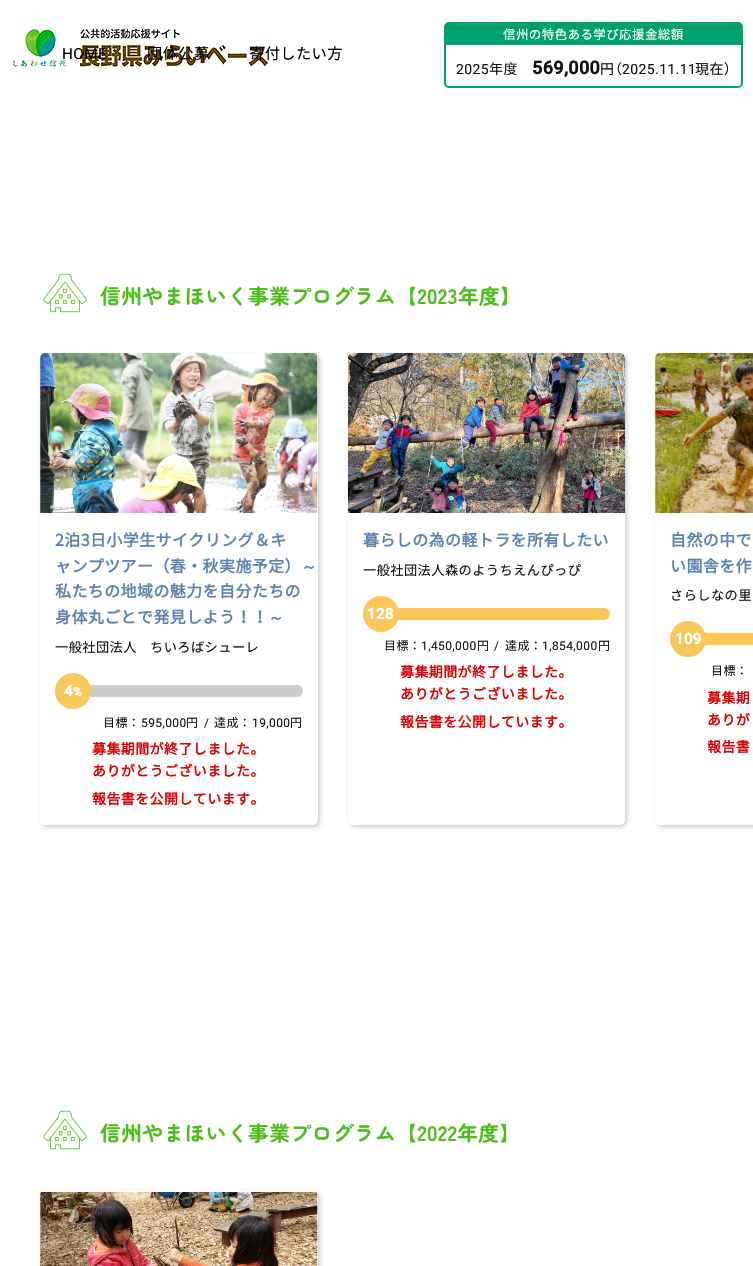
#include "include/core/SkBlurTypes.h"
#include "include/core/SkCanvas.h"
#include "include/core/SkData.h"
#include "include/core/SkFont.h"
#include "include/core/SkFontMgr.h"
#include "include/core/SkImage.h"
#include "include/core/SkMaskFilter.h"
#include "include/core/SkPaint.h"
#include "include/core/SkPathBuilder.h"
#include "include/core/SkTextBlob.h"
#include "include/effects/SkDashPathEffect.h"
#include "include/effects/SkGradientShader.h"
#include "include/utils/SkParsePath.h"

extern sk_sp<SkFontMgr> fontMgr;

void draw(SkCanvas* canvas) {
  SkPaint p;
  p.setAntiAlias(true);
  auto spacedText = [&](const char* s, float x, float y, const SkFont& font, const SkPaint& ink, float letter, float word) {
    std::vector<SkGlyphID> glyphs(font.countText(s, strlen(s), SkTextEncoding::kUTF8));
    std::vector<float> xs(glyphs.size());
    font.textToGlyphs(s, strlen(s), SkTextEncoding::kUTF8, glyphs);
    font.getXPos(glyphs, xs, x);
    float extra = 0;
    for (size_t i = 0; i < glyphs.size(); i++) {
      xs[i] += extra;
      extra += letter + word * (glyphs[i] == font.unicharToGlyph(' '));
    }
    canvas->drawTextBlob(SkTextBlob::MakeFromPosHGlyphs(glyphs, xs, y, font), 0, 0, ink);
  };
  canvas->clear(SK_ColorWHITE);
  canvas->drawImageRect(SkImages::DeferredFromEncodedData(SkData::MakeFromFileName("images/1.png")), SkRect::MakeLTRB(13, 28, 268, 67), SkSamplingOptions());
  p.setStyle(SkPaint::kStroke_Style);
  p.setStrokeWidth(2);
  p.setColor(SkColorSetRGB(0, 159, 110));
  canvas->drawRoundRect(SkRect::MakeLTRB(445, 23, 742, 87), 4, 4, p);
  p.setStyle(SkPaint::kFill_Style);
  canvas->drawRect(SkRect::MakeLTRB(446, 24, 741, 45), p);
  canvas->drawImageRect(SkImages::DeferredFromEncodedData(SkData::MakeFromFileName("images/2.png")), SkRect::MakeLTRB(43, 273, 87, 313), SkSamplingOptions());
  p.setColor(SkColorSetRGB(204, 204, 204));
  p.setMaskFilter(SkMaskFilter::MakeBlur(kNormal_SkBlurStyle, 2));
  canvas->drawRoundRect(SkRect::MakeLTRB(42, 355, 320, 827), 5, 5, p);
  p.setMaskFilter(nullptr);
  p.setColor(SK_ColorWHITE);
  canvas->drawRoundRect(SkRect::MakeLTRB(40, 353, 318, 825), 5, 5, p);
  canvas->drawImageRect(SkImages::DeferredFromEncodedData(SkData::MakeFromFileName("images/3.png")), SkRect::MakeLTRB(40, 353, 318, 513), SkSamplingOptions());
  p.setColor(SkColorSetRGB(204, 204, 204));
  canvas->drawRoundRect(SkRect::MakeLTRB(55, 685, 303, 697), 6, 6, p);
  p.setColor(SkColorSetRGB(250, 199, 90));
  canvas->drawCircle(73, 691, 18, p);
  p.setColor(SkColorSetRGB(204, 204, 204));
  p.setMaskFilter(SkMaskFilter::MakeBlur(kNormal_SkBlurStyle, 2));
  canvas->drawRoundRect(SkRect::MakeLTRB(350, 355, 627, 827), 5, 5, p);
  p.setMaskFilter(nullptr);
  p.setColor(SK_ColorWHITE);
  canvas->drawRoundRect(SkRect::MakeLTRB(348, 353, 625, 825), 5, 5, p);
  canvas->drawImageRect(SkImages::DeferredFromEncodedData(SkData::MakeFromFileName("images/4.png")), SkRect::MakeLTRB(348, 353, 625, 513), SkSamplingOptions());
  p.setColor(SkColorSetRGB(250, 199, 90));
  canvas->drawRoundRect(SkRect::MakeLTRB(363, 608, 610, 620), 6, 6, p);
  canvas->drawCircle(381, 614, 18, p);
  p.setColor(SkColorSetRGB(204, 204, 204));
  p.setMaskFilter(SkMaskFilter::MakeBlur(kNormal_SkBlurStyle, 2));
  canvas->drawRoundRect(SkRect::MakeLTRB(657, 355, 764, 827), 5, 5, p);
  p.setMaskFilter(nullptr);
  p.setColor(SK_ColorWHITE);
  canvas->drawRoundRect(SkRect::MakeLTRB(655, 353, 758, 825), 5, 5, p);
  canvas->drawImageRect(SkImages::DeferredFromEncodedData(SkData::MakeFromFileName("images/5.png")), SkRect::MakeLTRB(655, 353, 753, 513), SkSamplingOptions());
  p.setColor(SkColorSetRGB(250, 199, 90));
  canvas->drawRoundRect(SkRect::MakeLTRB(670, 633, 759, 645), 6, 6, p);
  canvas->drawCircle(688, 639, 18, p);
  canvas->drawImageRect(SkImages::DeferredFromEncodedData(SkData::MakeFromFileName("images/2.png")), SkRect::MakeLTRB(43, 1110, 87, 1150), SkSamplingOptions());
  p.setColor(SkColorSetRGB(204, 204, 204));
  p.setMaskFilter(SkMaskFilter::MakeBlur(kNormal_SkBlurStyle, 2));
  canvas->drawRoundRect(SkRect::MakeLTRB(42, 1192, 320, 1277), 5, 5, p);
  p.setMaskFilter(nullptr);
  p.setColor(SK_ColorWHITE);
  canvas->drawRoundRect(SkRect::MakeLTRB(40, 1190, 318, 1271), 5, 5, p);
  canvas->drawImageRect(SkImages::DeferredFromEncodedData(SkData::MakeFromFileName("images/6.png")), SkRect::MakeLTRB(40, 1191, 318, 1266), SkSamplingOptions());
  SkFont font1(fontMgr->matchFamilyStyle("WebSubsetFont", SkFontStyle::Normal()), 12.5f);
  font1.setSubpixel(true);
  spacedText("信州の特色ある学び応援金総額", 503, 39, font1, p, 0.4f, 0);
  SkFont font2(fontMgr->matchFamilyStyle("Roboto", SkFontStyle::Normal()), 14);
  font2.setSubpixel(true);
  p.setColor(SkColorSetRGB(17, 17, 17));
  spacedText("2025", 456, 74, font2, p, 0.4f, 0);
  SkFont font3(fontMgr->matchFamilyStyle("WebSubsetFont", SkFontStyle::Normal()), 14);
  font3.setSubpixel(true);
  spacedText("年度", 489, 74, font3, p, 0.4f, 0);
  SkFont font4(fontMgr->matchFamilyStyle("Roboto", SkFontStyle::Bold()), 18);
  font4.setSubpixel(true);
  spacedText("569,000", 532, 74, font4, p, 0.4f, 0);
  spacedText("円", 600, 74, font3, p, 0.4f, 0);
  SkFont font5(fontMgr->matchFamilyStyle("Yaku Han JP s", SkFontStyle::Normal()), 14);
  font5.setSubpixel(true);
  spacedText("（", 615, 74, font5, p, 0.4f, 0);
  spacedText("2025.11.11", 622, 74, font2, p, 0.4f, 0);
  spacedText("現在", 695, 74, font3, p, 0.4f, 0);
  spacedText("）", 724, 74, font5, p, 0.4f, 0);
  SkFont font6(fontMgr->matchFamilyStyle("Roboto", SkFontStyle::Normal()), 15.25f);
  font6.setSubpixel(true);
  p.setColor(SK_ColorBLACK);
  spacedText("HOME", 62, 59, font6, p, 0.4f, 0);
  SkFont font7(fontMgr->matchFamilyStyle("WebSubsetFont", SkFontStyle::Normal()), 15.25f);
  font7.setSubpixel(true);
  spacedText("団体公募", 147, 59, font7, p, 0.4f, 0);
  spacedText("寄付したい方", 249, 59, font7, p, 0.4f, 0);
  SkFont font8(fontMgr->matchFamilyStyle("Zen Maru Gothic", SkFontStyle::Bold()), 20.75f);
  font8.setSubpixel(true);
  p.setColor(SkColorSetRGB(75, 190, 25));
  spacedText("信州やまほいく事業プログラム【2023年度】", 100, 304, font8, p, 0.4f, 0);
  SkFont font9(fontMgr->matchFamilyStyle("WebSubsetFont", SkFontStyle::Bold()), 16);
  font9.setSubpixel(true);
  p.setColor(SkColorSetRGB(91, 130, 175));
  spacedText("2泊3日小学生サイクリング＆キ", 55, 546, font9, p, 0.4f, 0);
  spacedText("ャンプツアー（春・秋実施予定）", 55, 572, font9, p, 0.4f, 0);
  SkFont font10(fontMgr->matchFamilyStyle("WenQuanYi Zen Hei", SkFontStyle::Bold()), 16);
  font10.setSubpixel(true);
  spacedText("～", 301, 572, font10, p, 0.4f, 0);
  spacedText("私たちの地域の魅力を自分たちの", 55, 597, font9, p, 0.4f, 0);
  spacedText("身体丸ごとで発見しよう！！", 55, 623, font9, p, 0.4f, 0);
  spacedText("～", 268, 623, font10, p, 0.4f, 0);
  SkFont font11(fontMgr->matchFamilyStyle("WebSubsetFont", SkFontStyle::Normal()), 13.25f);
  font11.setSubpixel(true);
  p.setColor(SkColorSetRGB(17, 17, 17));
  spacedText("一般社団法人", 55, 652, font11, p, 0.4f, 0);
  spacedText("ちいろばシューレ", 150, 652, font11, p, 0.4f, 0);
  SkFont font12(fontMgr->matchFamilyStyle("Roboto", SkFontStyle::Bold()), 15);
  font12.setSubpixel(true);
  p.setColor(SK_ColorWHITE);
  spacedText("4", 64, 696, font12, p, 0.4f, 0);
  SkFont font13(fontMgr->matchFamilyStyle("Roboto", SkFontStyle::Bold()), 12);
  font13.setSubpixel(true);
  spacedText("%", 73, 696, font13, p, 0.4f, 0);
  SkFont font14(fontMgr->matchFamilyStyle("WebSubsetFont", SkFontStyle::Normal()), 12);
  font14.setSubpixel(true);
  p.setColor(SkColorSetRGB(17, 17, 17));
  spacedText("目標：", 103, 727, font14, p, 0.4f, 0);
  SkFont font15(fontMgr->matchFamilyStyle("Roboto", SkFontStyle::Normal()), 12);
  font15.setSubpixel(true);
  spacedText("595,000", 141, 727, font15, p, 0.4f, 0);
  spacedText("円", 186, 727, font14, p, 0.4f, 0);
  spacedText("/", 204, 727, font15, p, 0.4f, 0);
  spacedText("達成：", 214, 727, font14, p, 0.4f, 0);
  spacedText("19,000", 252, 727, font15, p, 0.4f, 0);
  spacedText("円", 290, 727, font14, p, 0.4f, 0);
  SkFont font16(fontMgr->matchFamilyStyle("WebSubsetFont", SkFontStyle::Bold()), 14);
  font16.setSubpixel(true);
  p.setColor(SkColorSetRGB(221, 0, 0));
  spacedText("募集期間が終了しました。", 92, 754, font16, p, 0.4f, 0);
  spacedText("ありがとうございました。", 92, 776, font16, p, 0.4f, 0);
  spacedText("報告書を公開しています。", 92, 804, font16, p, 0.4f, 0);
  p.setColor(SkColorSetRGB(91, 130, 175));
  spacedText("暮らしの為の軽トラを所有したい", 363, 546, font9, p, 0.4f, 0);
  p.setColor(SkColorSetRGB(17, 17, 17));
  spacedText("一般社団法人森のようちえんぴっぴ", 363, 575, font11, p, 0.4f, 0);
  p.setColor(SK_ColorWHITE);
  spacedText("128", 367, 619, font12, p, 0.4f, 0);
  p.setColor(SkColorSetRGB(17, 17, 17));
  spacedText("目標：", 384, 650, font14, p, 0.4f, 0);
  spacedText("1,450,000", 421, 650, font15, p, 0.4f, 0);
  spacedText("円", 477, 650, font14, p, 0.4f, 0);
  spacedText("/", 494, 650, font15, p, 0.4f, 0);
  spacedText("達成：", 505, 650, font14, p, 0.4f, 0);
  spacedText("1,854,000", 542, 650, font15, p, 0.4f, 0);
  spacedText("円", 598, 650, font14, p, 0.4f, 0);
  p.setColor(SkColorSetRGB(221, 0, 0));
  spacedText("募集期間が終了しました。", 400, 677, font16, p, 0.4f, 0);
  spacedText("ありがとうございました。", 400, 699, font16, p, 0.4f, 0);
  spacedText("報告書を公開しています。", 400, 727, font16, p, 0.4f, 0);
  p.setColor(SkColorSetRGB(91, 130, 175));
  spacedText("自然の中で", 670, 546, font9, p, 0.4f, 0);
  spacedText("い園舎を作", 670, 572, font9, p, 0.4f, 0);
  p.setColor(SkColorSetRGB(17, 17, 17));
  spacedText("さらしなの里", 670, 600, font11, p, 0.4f, 0);
  p.setColor(SK_ColorWHITE);
  spacedText("109", 675, 644, font12, p, 0.4f, 0);
  p.setColor(SkColorSetRGB(17, 17, 17));
  spacedText("目標：", 711, 675, font14, p, 0.4f, 0);
  p.setColor(SkColorSetRGB(221, 0, 0));
  spacedText("募集期", 707, 703, font16, p, 0.4f, 0);
  spacedText("ありが", 707, 725, font16, p, 0.4f, 0);
  spacedText("報告書", 707, 752, font16, p, 0.4f, 0);
  p.setColor(SkColorSetRGB(75, 190, 25));
  spacedText("信州やまほいく事業プログラム【2022年度】", 100, 1141, font8, p, 0.4f, 0);
}
